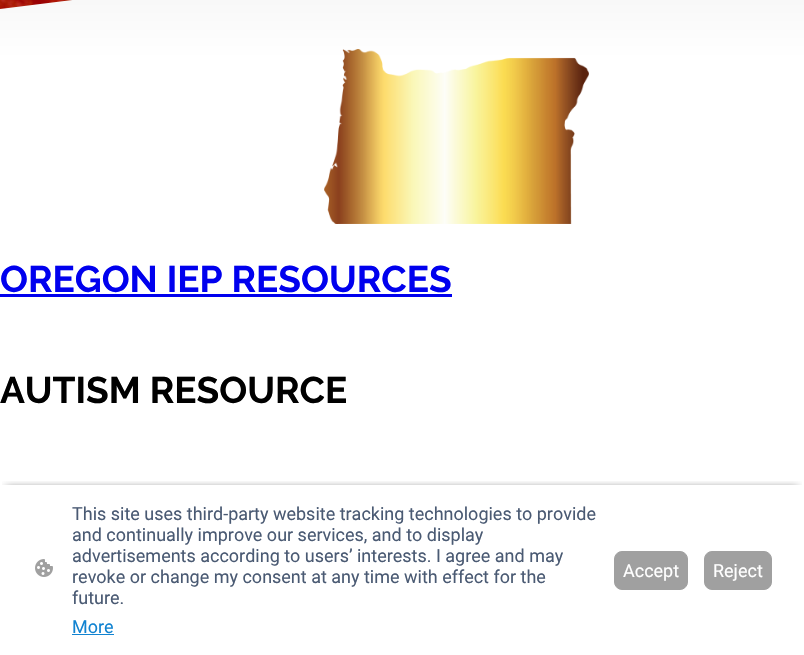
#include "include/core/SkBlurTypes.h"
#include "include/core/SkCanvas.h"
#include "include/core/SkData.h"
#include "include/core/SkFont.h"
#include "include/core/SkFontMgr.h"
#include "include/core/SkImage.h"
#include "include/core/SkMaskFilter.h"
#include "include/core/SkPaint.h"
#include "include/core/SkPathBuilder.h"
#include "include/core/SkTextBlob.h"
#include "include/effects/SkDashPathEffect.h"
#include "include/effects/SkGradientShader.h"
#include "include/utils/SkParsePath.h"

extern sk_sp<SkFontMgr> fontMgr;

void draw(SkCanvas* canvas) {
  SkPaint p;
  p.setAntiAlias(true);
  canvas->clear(SK_ColorWHITE);
  canvas->drawImageRect(SkImages::DeferredFromEncodedData(SkData::MakeFromFileName("images/1.png")), SkRect::MakeLTRB(0, 0, 73, 9), SkSamplingOptions());
  p.setColor(SK_ColorWHITE);
  canvas->drawPath(SkPathBuilder().moveTo(0, 9).lineTo(0, 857).lineTo(804, 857).lineTo(804, -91).close().detach(), p);
  {
    const SkColor colors[] = {SkColorSetARGB(18, 0, 0, 0), SkColorSetARGB(0, 0, 0, 0)};
    const float stops[] = {0, 1};
    const SkPoint ends[] = {{402, -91}, {402, 59}};
    p.setShader(SkGradientShader::MakeLinear(ends, colors, stops, 2, SkTileMode::kClamp));
    p.setAlpha(255);
  }
  canvas->drawPath(SkPathBuilder().moveTo(0, 9).lineTo(0, 59).lineTo(804, 59).lineTo(804, -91).close().detach(), p);
  canvas->drawImageRect(SkImages::DeferredFromEncodedData(SkData::MakeFromFileName("images/2.png")), SkRect::MakeLTRB(324, 49, 589, 224), SkSamplingOptions());
  p.setShader(nullptr);
  p.setColor(SkColorSetRGB(0, 0, 238));
  canvas->drawRect(SkRect::MakeLTRB(0, 294, 452, 297), p);
  canvas->save();
  canvas->clipRect(SkRect::MakeLTRB(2, 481, 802, 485));
  p.setColor(SkColorSetARGB(161, 0, 0, 0));
  p.setMaskFilter(SkMaskFilter::MakeBlur(kNormal_SkBlurStyle, 4));
  canvas->drawRect(SkRect::MakeLTRB(6, 488, 798, 646), p);
  p.setMaskFilter(nullptr);
  canvas->restore();
  canvas->drawImageRect(SkImages::DeferredFromEncodedData(SkData::MakeFromFileName("images/3.png")), SkRect::MakeLTRB(35, 559, 53, 577), SkSamplingOptions());
  p.setColor(SkColorSetRGB(17, 131, 209));
  canvas->drawRect(SkRect::MakeLTRB(72, 634, 114, 635), p);
  p.setColor(SkColorSetRGB(160, 160, 160));
  canvas->drawRoundRect(SkRect::MakeLTRB(614.5f, 551.5f, 687.5f, 589.5f), 7.5f, 7.5f, p);
  p.setStyle(SkPaint::kStroke_Style);
  p.setStrokeWidth(1);
  canvas->drawRoundRect(SkRect::MakeLTRB(614.5f, 551.5f, 687.5f, 589.5f), 7.5f, 7.5f, p);
  p.setStyle(SkPaint::kFill_Style);
  canvas->drawRoundRect(SkRect::MakeLTRB(704.5f, 551.5f, 771.5f, 589.5f), 7.5f, 7.5f, p);
  p.setStyle(SkPaint::kStroke_Style);
  canvas->drawRoundRect(SkRect::MakeLTRB(704.5f, 551.5f, 771.5f, 589.5f), 7.5f, 7.5f, p);
  SkFont font1(fontMgr->matchFamilyStyle("Raleway", SkFontStyle::Bold()), 37);
  font1.setSubpixel(true);
  p.setStyle(SkPaint::kFill_Style);
  p.setColor(SkColorSetRGB(0, 0, 238));
  canvas->drawString("OREGON IEP RESOURCES", 0, 292, font1, p);
  p.setColor(SK_ColorBLACK);
  canvas->drawString("AUTISM RESOURCE", 0, 403, font1, p);
  SkFont font2(fontMgr->matchFamilyStyle("Roboto", SkFontStyle::Normal()), 18);
  font2.setSubpixel(true);
  p.setColor(SkColorSetRGB(74, 90, 115));
  canvas->drawString("This site uses third-party website tracking technologies to provide", 72, 520, font2, p);
  canvas->drawString("and continually improve our services, and to display", 72, 541, font2, p);
  canvas->drawString("advertisements according to users’ interests. I agree and may", 72, 562, font2, p);
  canvas->drawString("revoke or change my consent at any time with effect for the", 72, 583, font2, p);
  canvas->drawString("future.", 72, 604, font2, p);
  p.setColor(SkColorSetRGB(17, 131, 209));
  canvas->drawString("More", 72, 633, font2, p);
  p.setColor(SK_ColorWHITE);
  canvas->drawString("Accept", 623, 577, font2, p);
  canvas->drawString("Reject", 713, 577, font2, p);
}
